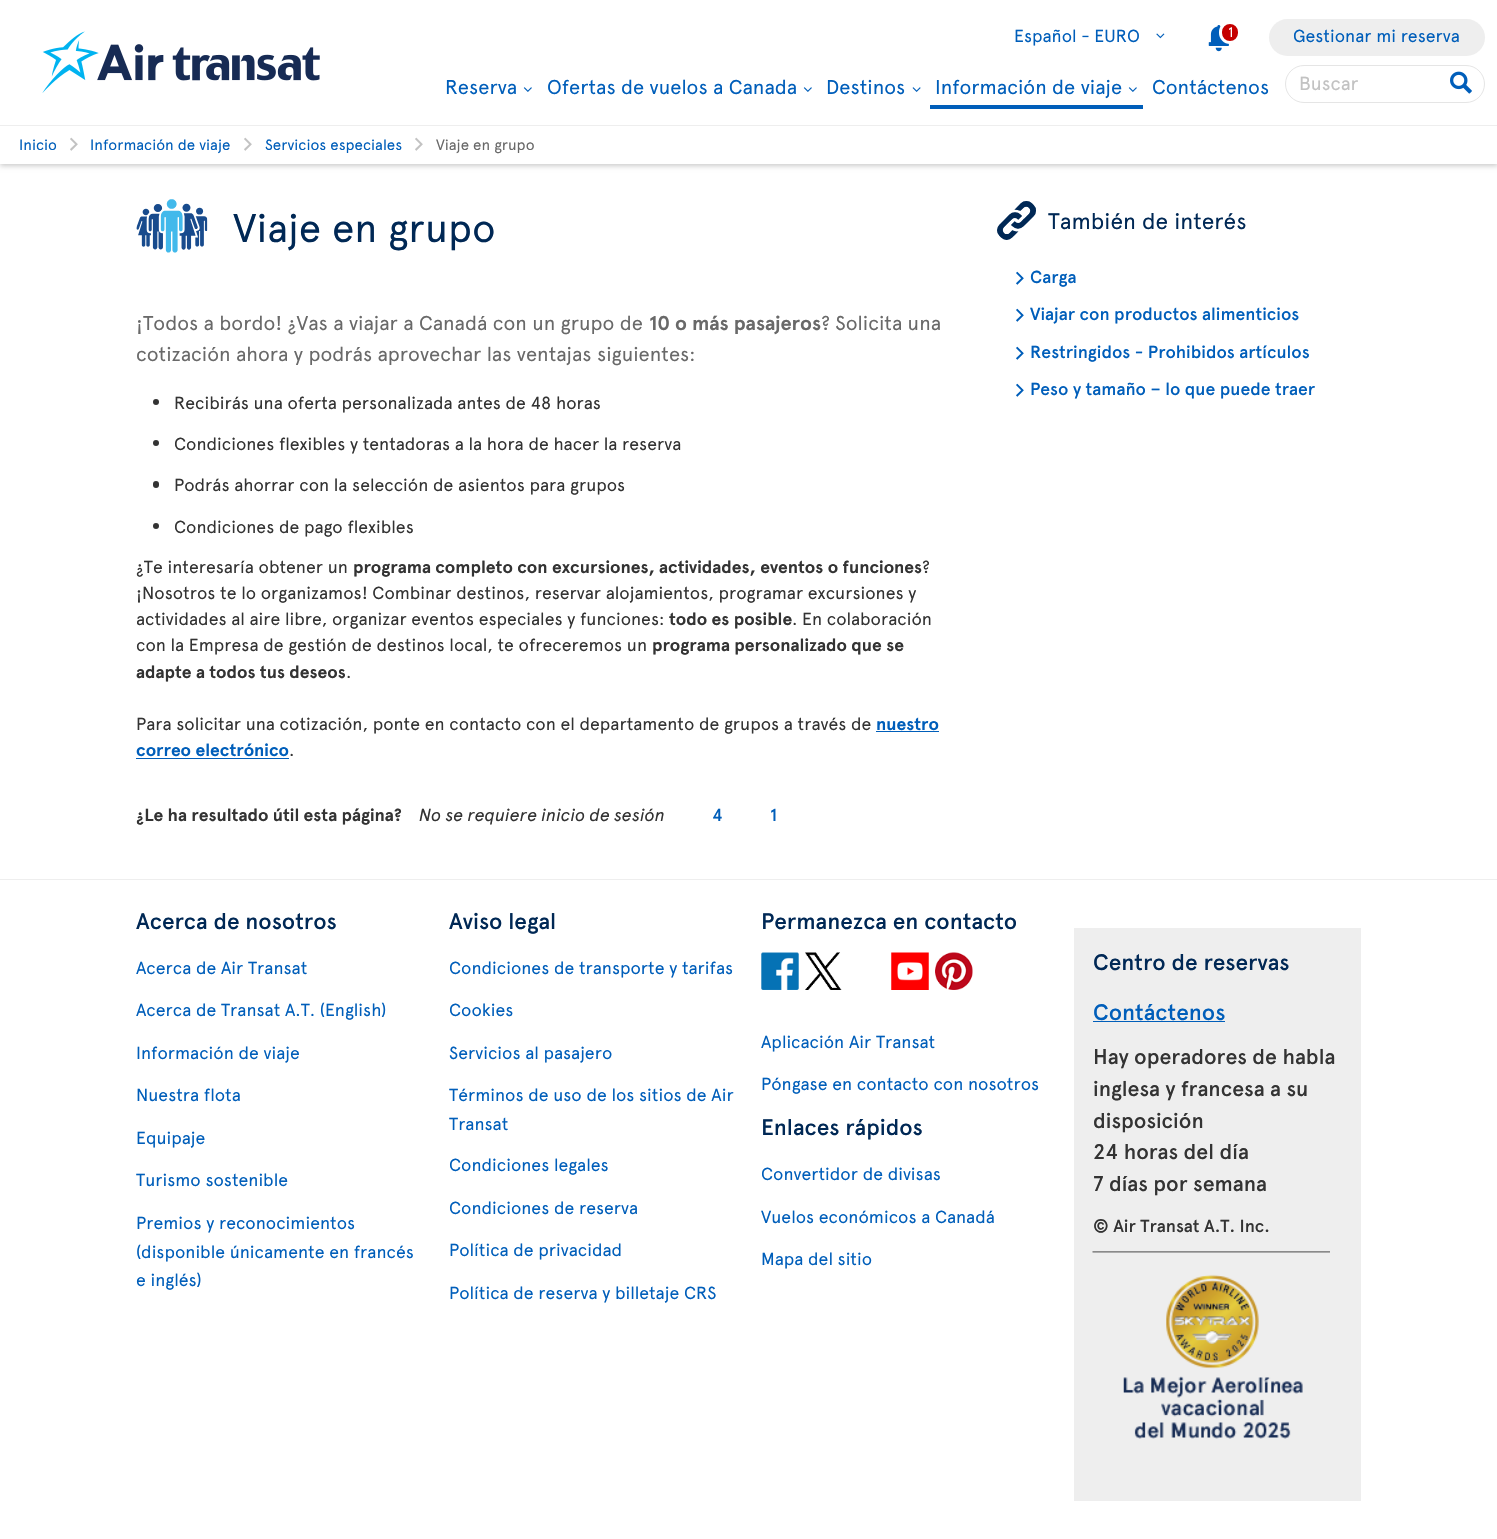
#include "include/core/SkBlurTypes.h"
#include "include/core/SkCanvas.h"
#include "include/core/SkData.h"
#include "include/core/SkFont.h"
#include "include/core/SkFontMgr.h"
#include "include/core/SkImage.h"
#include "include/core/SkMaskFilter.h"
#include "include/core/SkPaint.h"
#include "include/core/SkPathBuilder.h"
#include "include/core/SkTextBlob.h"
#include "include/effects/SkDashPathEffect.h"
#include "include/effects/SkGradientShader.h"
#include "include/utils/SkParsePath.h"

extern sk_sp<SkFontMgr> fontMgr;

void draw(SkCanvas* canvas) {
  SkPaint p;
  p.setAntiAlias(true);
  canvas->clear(SK_ColorWHITE);
  p.setColor(SkColorSetARGB(51, 0, 0, 0));
  p.setMaskFilter(SkMaskFilter::MakeBlur(kNormal_SkBlurStyle, 2.5f));
  canvas->drawRect(SkRect::MakeLTRB(0, 3, 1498, 166), p);
  p.setMaskFilter(nullptr);
  p.setColor(SK_ColorWHITE);
  canvas->drawRect(SkRect::MakeLTRB(0, 0, 1497, 164), p);
  canvas->drawImageRect(SkImages::DeferredFromEncodedData(SkData::MakeFromFileName("images/1.png")), SkRect::MakeLTRB(42, 31, 320, 93), SkSamplingOptions());
  canvas->drawImageRect(SkImages::DeferredFromEncodedData(SkData::MakeFromFileName("images/2.png")), SkRect::MakeLTRB(1156, 33, 1165, 39), SkSamplingOptions());
  canvas->drawImageRect(SkImages::DeferredFromEncodedData(SkData::MakeFromFileName("images/3.png")), SkRect::MakeLTRB(1208, 25, 1229, 52), SkSamplingOptions());
  p.setColor(SkColorSetRGB(197, 0, 0));
  canvas->drawRoundRect(SkRect::MakeLTRB(1220.5f, 22.5f, 1239.5f, 42.5f), 9.5f, 9.5f, p);
  p.setStyle(SkPaint::kStroke_Style);
  p.setStrokeWidth(3);
  p.setColor(SK_ColorWHITE);
  canvas->drawRoundRect(SkRect::MakeLTRB(1220.5f, 22.5f, 1239.5f, 42.5f), 9.5f, 9.5f, p);
  p.setStyle(SkPaint::kFill_Style);
  p.setColor(SkColorSetRGB(238, 238, 238));
  canvas->drawRoundRect(SkRect::MakeLTRB(1269, 19, 1485, 56), 18.5f, 18.5f, p);
  canvas->drawImageRect(SkImages::DeferredFromEncodedData(SkData::MakeFromFileName("images/4.png")), SkRect::MakeLTRB(523, 87, 532, 92), SkSamplingOptions());
  canvas->drawImageRect(SkImages::DeferredFromEncodedData(SkData::MakeFromFileName("images/4.png")), SkRect::MakeLTRB(803, 87, 812, 92), SkSamplingOptions());
  canvas->drawImageRect(SkImages::DeferredFromEncodedData(SkData::MakeFromFileName("images/5.png")), SkRect::MakeLTRB(912, 87, 921, 92), SkSamplingOptions());
  p.setColor(SkColorSetRGB(0, 94, 186));
  canvas->drawRect(SkRect::MakeLTRB(930, 105, 1143, 109), p);
  canvas->drawImageRect(SkImages::DeferredFromEncodedData(SkData::MakeFromFileName("images/4.png")), SkRect::MakeLTRB(1128, 87, 1137, 92), SkSamplingOptions());
  p.setStyle(SkPaint::kStroke_Style);
  p.setStrokeWidth(1);
  p.setColor(SkColorSetRGB(229, 229, 229));
  canvas->drawRoundRect(SkRect::MakeLTRB(1285.5f, 65.5f, 1484.5f, 102.5f), 18.5f, 18.5f, p);
  canvas->drawImageRect(SkImages::DeferredFromEncodedData(SkData::MakeFromFileName("images/6.png")), SkRect::MakeLTRB(1450, 71, 1472, 94), SkSamplingOptions());
  p.setStyle(SkPaint::kFill_Style);
  p.setColor(SkColorSetRGB(238, 238, 238));
  canvas->drawRect(SkRect::MakeLTRB(0, 125, 1497, 126), p);
  canvas->drawImageRect(SkImages::DeferredFromEncodedData(SkData::MakeFromFileName("images/7.png")), SkRect::MakeLTRB(136, 199, 208, 253), SkSamplingOptions());
  p.setColor(SkColorSetRGB(51, 51, 51));
  canvas->drawCircle(156, 402, 3, p);
  canvas->drawCircle(156, 443, 3, p);
  canvas->drawRoundRect(SkRect::MakeLTRB(153, 481, 159, 488), 3, 3, p);
  canvas->drawCircle(156, 526, 3, p);
  p.setColor(SkColorSetRGB(0, 94, 186));
  canvas->drawRect(SkRect::MakeLTRB(876, 731, 939, 732), p);
  canvas->drawRect(SkRect::MakeLTRB(136, 758, 289, 759), p);
  p.setColor(SkColorSetRGB(238, 238, 238));
  canvas->drawRect(SkRect::MakeLTRB(0, 879, 1497, 880), p);
  canvas->drawImageRect(SkImages::DeferredFromEncodedData(SkData::MakeFromFileName("images/8.png")), SkRect::MakeLTRB(761, 952, 799, 990), SkSamplingOptions());
  canvas->drawImageRect(SkImages::DeferredFromEncodedData(SkData::MakeFromFileName("images/9.png")), SkRect::MakeLTRB(805, 952, 842, 990), SkSamplingOptions());
  canvas->drawImageRect(SkImages::DeferredFromEncodedData(SkData::MakeFromFileName("images/10.png")), SkRect::MakeLTRB(891, 952, 929, 990), SkSamplingOptions());
  canvas->drawImageRect(SkImages::DeferredFromEncodedData(SkData::MakeFromFileName("images/11.png")), SkRect::MakeLTRB(935, 952, 973, 990), SkSamplingOptions());
  canvas->drawRect(SkRect::MakeLTRB(1074, 928, 1361, 1501), p);
  p.setColor(SkColorSetRGB(0, 94, 186));
  canvas->drawRect(SkRect::MakeLTRB(1093, 1021, 1225, 1022), p);
  canvas->drawImageRect(SkImages::DeferredFromEncodedData(SkData::MakeFromFileName("images/12.png")), SkRect::MakeLTRB(1092, 1251, 1330, 1439), SkSamplingOptions());
  SkFont font1(fontMgr->matchFamilyStyle("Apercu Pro", SkFontStyle::Normal()), 17.5f);
  font1.setSubpixel(true);
  canvas->drawString("Español - EURO", 1014, 42, font1, p);
  SkFont font2(fontMgr->matchFamilyStyle("Apercu Pro", SkFontStyle::Normal()), 14);
  font2.setSubpixel(true);
  p.setColor(SK_ColorWHITE);
  canvas->drawString("1", 1228, 37, font2, p);
  p.setColor(SkColorSetRGB(0, 94, 186));
  canvas->drawString("Gestionar mi reserva", 1293, 42, font1, p);
  SkFont font3(fontMgr->matchFamilyStyle("Apercu Pro", SkFontStyle::Normal()), 20);
  font3.setSubpixel(true);
  canvas->drawString("Reserva", 445, 94, font3, p);
  canvas->drawString("Ofertas de vuelos a Canada", 547, 94, font3, p);
  canvas->drawString("Destinos", 826, 94, font3, p);
  canvas->drawString("Información de viaje", 935, 94, font3, p);
  canvas->drawString("Contáctenos", 1152, 94, font3, p);
  SkFont font4(fontMgr->matchFamilyStyle("Apercu Pro", SkFontStyle::Normal()), 19);
  font4.setSubpixel(true);
  p.setColor(SkColorSetRGB(194, 194, 194));
  canvas->drawString("Buscar", 1299, 90, font4, p);
  SkFont font5(fontMgr->matchFamilyStyle("Apercu Pro", SkFontStyle::Normal()), 15);
  font5.setSubpixel(true);
  p.setColor(SkColorSetRGB(0, 94, 186));
  canvas->drawString("Inicio", 19, 150, font5, p);
  SkFont font6(fontMgr->matchFamilyStyle("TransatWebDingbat", SkFontStyle::Normal()), 20);
  font6.setSubpixel(true);
  p.setColor(SkColorSetRGB(194, 194, 194));
  canvas->drawString(">", 69, 150, font6, p);
  p.setColor(SkColorSetRGB(0, 94, 186));
  canvas->drawString("Información de viaje", 90, 150, font5, p);
  p.setColor(SkColorSetRGB(194, 194, 194));
  canvas->drawString(">", 243, 150, font6, p);
  p.setColor(SkColorSetRGB(0, 94, 186));
  canvas->drawString("Servicios especiales", 265, 150, font5, p);
  p.setColor(SkColorSetRGB(194, 194, 194));
  canvas->drawString(">", 414, 150, font6, p);
  p.setColor(SkColorSetRGB(105, 105, 105));
  canvas->drawString("Viaje en grupo", 436, 150, font5, p);
  SkFont font7(fontMgr->matchFamilyStyle("Apercu Pro", SkFontStyle::Normal()), 40);
  font7.setSubpixel(true);
  p.setColor(SkColorSetRGB(0, 40, 85));
  canvas->drawString("Viaje en grupo", 233, 242, font7, p);
  p.setColor(SkColorSetRGB(105, 105, 105));
  canvas->drawString("¡Todos a bordo! ¿Vas a viajar a Canadá con un grupo de", 136, 330, font3, p);
  SkFont font8(fontMgr->matchFamilyStyle("Apercu Pro", SkFontStyle::Bold()), 20);
  font8.setSubpixel(true);
  canvas->drawString("10 o más pasajeros", 649, 330, font8, p);
  canvas->drawString("? Solicita una", 821, 330, font3, p);
  canvas->drawString("cotización ahora y podrás aprovechar las ventajas siguientes:", 136, 361, font3, p);
  p.setColor(SkColorSetRGB(51, 51, 51));
  canvas->drawString("Recibirás una oferta personalizada antes de 48 horas", 174, 409, font1, p);
  canvas->drawString("Condiciones flexibles y tentadoras a la hora de hacer la reserva", 174, 450, font1, p);
  canvas->drawString("Podrás ahorrar con la selección de asientos para grupos", 174, 491, font1, p);
  canvas->drawString("Condiciones de pago flexibles", 174, 533, font1, p);
  canvas->drawString("¿Te interesaría obtener un", 136, 573, font1, p);
  SkFont font9(fontMgr->matchFamilyStyle("Apercu Pro", SkFontStyle::Bold()), 17.5f);
  font9.setSubpixel(true);
  canvas->drawString("programa completo con excursiones, actividades, eventos o funciones", 353, 573, font9, p);
  canvas->drawString("?", 922, 573, font1, p);
  canvas->drawString("¡Nosotros te lo organizamos! Combinar destinos, reservar alojamientos, programar excursiones y", 136, 599, font1, p);
  canvas->drawString("actividades al aire libre, organizar eventos especiales y funciones:", 136, 625, font1, p);
  canvas->drawString("todo es posible", 669, 625, font9, p);
  canvas->drawString(". En colaboración", 792, 625, font1, p);
  canvas->drawString("con la Empresa de gestión de destinos local, te ofreceremos un", 136, 651, font1, p);
  canvas->drawString("programa personalizado que se", 652, 651, font9, p);
  canvas->drawString("adapte a todos tus deseos", 136, 678, font9, p);
  canvas->drawString(".", 346, 678, font1, p);
  canvas->drawString("Para solicitar una cotización, ponte en contacto con el departamento de grupos a través de", 136, 730, font1, p);
  p.setColor(SkColorSetRGB(0, 94, 186));
  canvas->drawString("nuestro", 876, 730, font9, p);
  canvas->drawString("correo electrónico", 136, 756, font9, p);
  p.setColor(SkColorSetRGB(51, 51, 51));
  canvas->drawString(".", 289, 756, font1, p);
  SkFont font10(fontMgr->matchFamilyStyle("TransatWebDingbat", SkFontStyle::Normal()), 50);
  font10.setSubpixel(true);
  p.setColor(SkColorSetRGB(0, 40, 85));
  canvas->drawString("ÿ", 997, 235, font10, p);
  SkFont font11(fontMgr->matchFamilyStyle("Apercu Pro", SkFontStyle::Normal()), 22.5f);
  font11.setSubpixel(true);
  canvas->drawString("También de interés", 1048, 229, font11, p);
  p.setColor(SkColorSetRGB(0, 94, 186));
  canvas->drawString(">", 1015, 284, font6, p);
  SkFont font12(fontMgr->matchFamilyStyle("Apercu Pro", SkFontStyle(500, SkFontStyle::kNormal_Width, SkFontStyle::kUpright_Slant)), 17.5f);
  font12.setSubpixel(true);
  canvas->drawString("Carga", 1030, 283, font12, p);
  canvas->drawString(">", 1015, 321, font6, p);
  canvas->drawString("Viajar con productos alimenticios", 1030, 320, font12, p);
  canvas->drawString(">", 1015, 359, font6, p);
  canvas->drawString("Restringidos - Prohibidos artículos", 1030, 358, font12, p);
  canvas->drawString(">", 1015, 396, font6, p);
  canvas->drawString("Peso y tamaño – lo que puede traer", 1030, 395, font12, p);
  p.setColor(SkColorSetRGB(51, 51, 51));
  canvas->drawString("¿Le ha resultado útil esta página?", 136, 821, font9, p);
  SkFont font13(fontMgr->matchFamilyStyle("Apercu Pro", SkFontStyle::Italic()), 17.5f);
  font13.setSubpixel(true);
  canvas->drawString("No se requiere inicio de sesión", 419, 821, font13, p);
  p.setColor(SkColorSetRGB(0, 94, 186));
  canvas->drawString("4", 712, 821, font12, p);
  canvas->drawString("1", 770, 821, font12, p);
  SkFont font14(fontMgr->matchFamilyStyle("Apercu Pro", SkFontStyle(500, SkFontStyle::kNormal_Width, SkFontStyle::kUpright_Slant)), 22.5f);
  font14.setSubpixel(true);
  p.setColor(SkColorSetRGB(0, 40, 85));
  canvas->drawString("Acerca de nosotros", 136, 929, font14, p);
  p.setColor(SkColorSetRGB(0, 94, 186));
  canvas->drawString("Acerca de Air Transat", 136, 974, font1, p);
  canvas->drawString("Acerca de Transat A.T. (English)", 136, 1016, font1, p);
  canvas->drawString("Información de viaje", 136, 1059, font1, p);
  canvas->drawString("Nuestra flota", 136, 1101, font1, p);
  canvas->drawString("Equipaje", 136, 1144, font1, p);
  canvas->drawString("Turismo sostenible", 136, 1186, font1, p);
  canvas->drawString("Premios y reconocimientos", 136, 1229, font1, p);
  canvas->drawString("(disponible únicamente en francés", 136, 1258, font1, p);
  canvas->drawString("e inglés)", 136, 1286, font1, p);
  p.setColor(SkColorSetRGB(0, 40, 85));
  canvas->drawString("Aviso legal", 449, 929, font14, p);
  p.setColor(SkColorSetRGB(0, 94, 186));
  canvas->drawString("Condiciones de transporte y tarifas", 449, 974, font1, p);
  canvas->drawString("Cookies", 449, 1016, font1, p);
  canvas->drawString("Servicios al pasajero", 449, 1059, font1, p);
  canvas->drawString("Términos de uso de los sitios de Air", 449, 1101, font1, p);
  canvas->drawString("Transat", 449, 1130, font1, p);
  canvas->drawString("Condiciones legales", 449, 1171, font1, p);
  canvas->drawString("Condiciones de reserva", 449, 1214, font1, p);
  canvas->drawString("Política de privacidad", 449, 1256, font1, p);
  canvas->drawString("Política de reserva y billetaje CRS", 449, 1299, font1, p);
  p.setColor(SkColorSetRGB(0, 40, 85));
  canvas->drawString("Permanezca en contacto", 761, 929, font14, p);
  p.setColor(SkColorSetRGB(0, 94, 186));
  canvas->drawString("Aplicación Air Transat", 761, 1048, font1, p);
  canvas->drawString("Póngase en contacto con nosotros", 761, 1090, font1, p);
  p.setColor(SkColorSetRGB(0, 40, 85));
  canvas->drawString("Enlaces rápidos", 761, 1135, font14, p);
  p.setColor(SkColorSetRGB(0, 94, 186));
  canvas->drawString("Convertidor de divisas", 761, 1180, font1, p);
  canvas->drawString("Vuelos económicos a Canadá", 761, 1223, font1, p);
  canvas->drawString("Mapa del sitio", 761, 1265, font1, p);
  p.setColor(SkColorSetRGB(0, 40, 85));
  canvas->drawString("Centro de reservas", 1093, 970, font14, p);
  p.setColor(SkColorSetRGB(0, 94, 186));
  canvas->drawString("Contáctenos", 1093, 1020, font14, p);
  SkFont font15(fontMgr->matchFamilyStyle("Apercu Pro", SkFontStyle(500, SkFontStyle::kNormal_Width, SkFontStyle::kUpright_Slant)), 21.25f);
  font15.setSubpixel(true);
  p.setColor(SkColorSetRGB(51, 51, 51));
  canvas->drawString("Hay operadores de habla", 1093, 1064, font15, p);
  canvas->drawString("inglesa y francesa a su", 1093, 1096, font15, p);
  canvas->drawString("disposición", 1093, 1128, font15, p);
  canvas->drawString("24 horas del día", 1093, 1159, font15, p);
  canvas->drawString("7 días por semana", 1093, 1191, font15, p);
  canvas->drawString("© Air Transat A.T. Inc.", 1093, 1232, font12, p);
}
